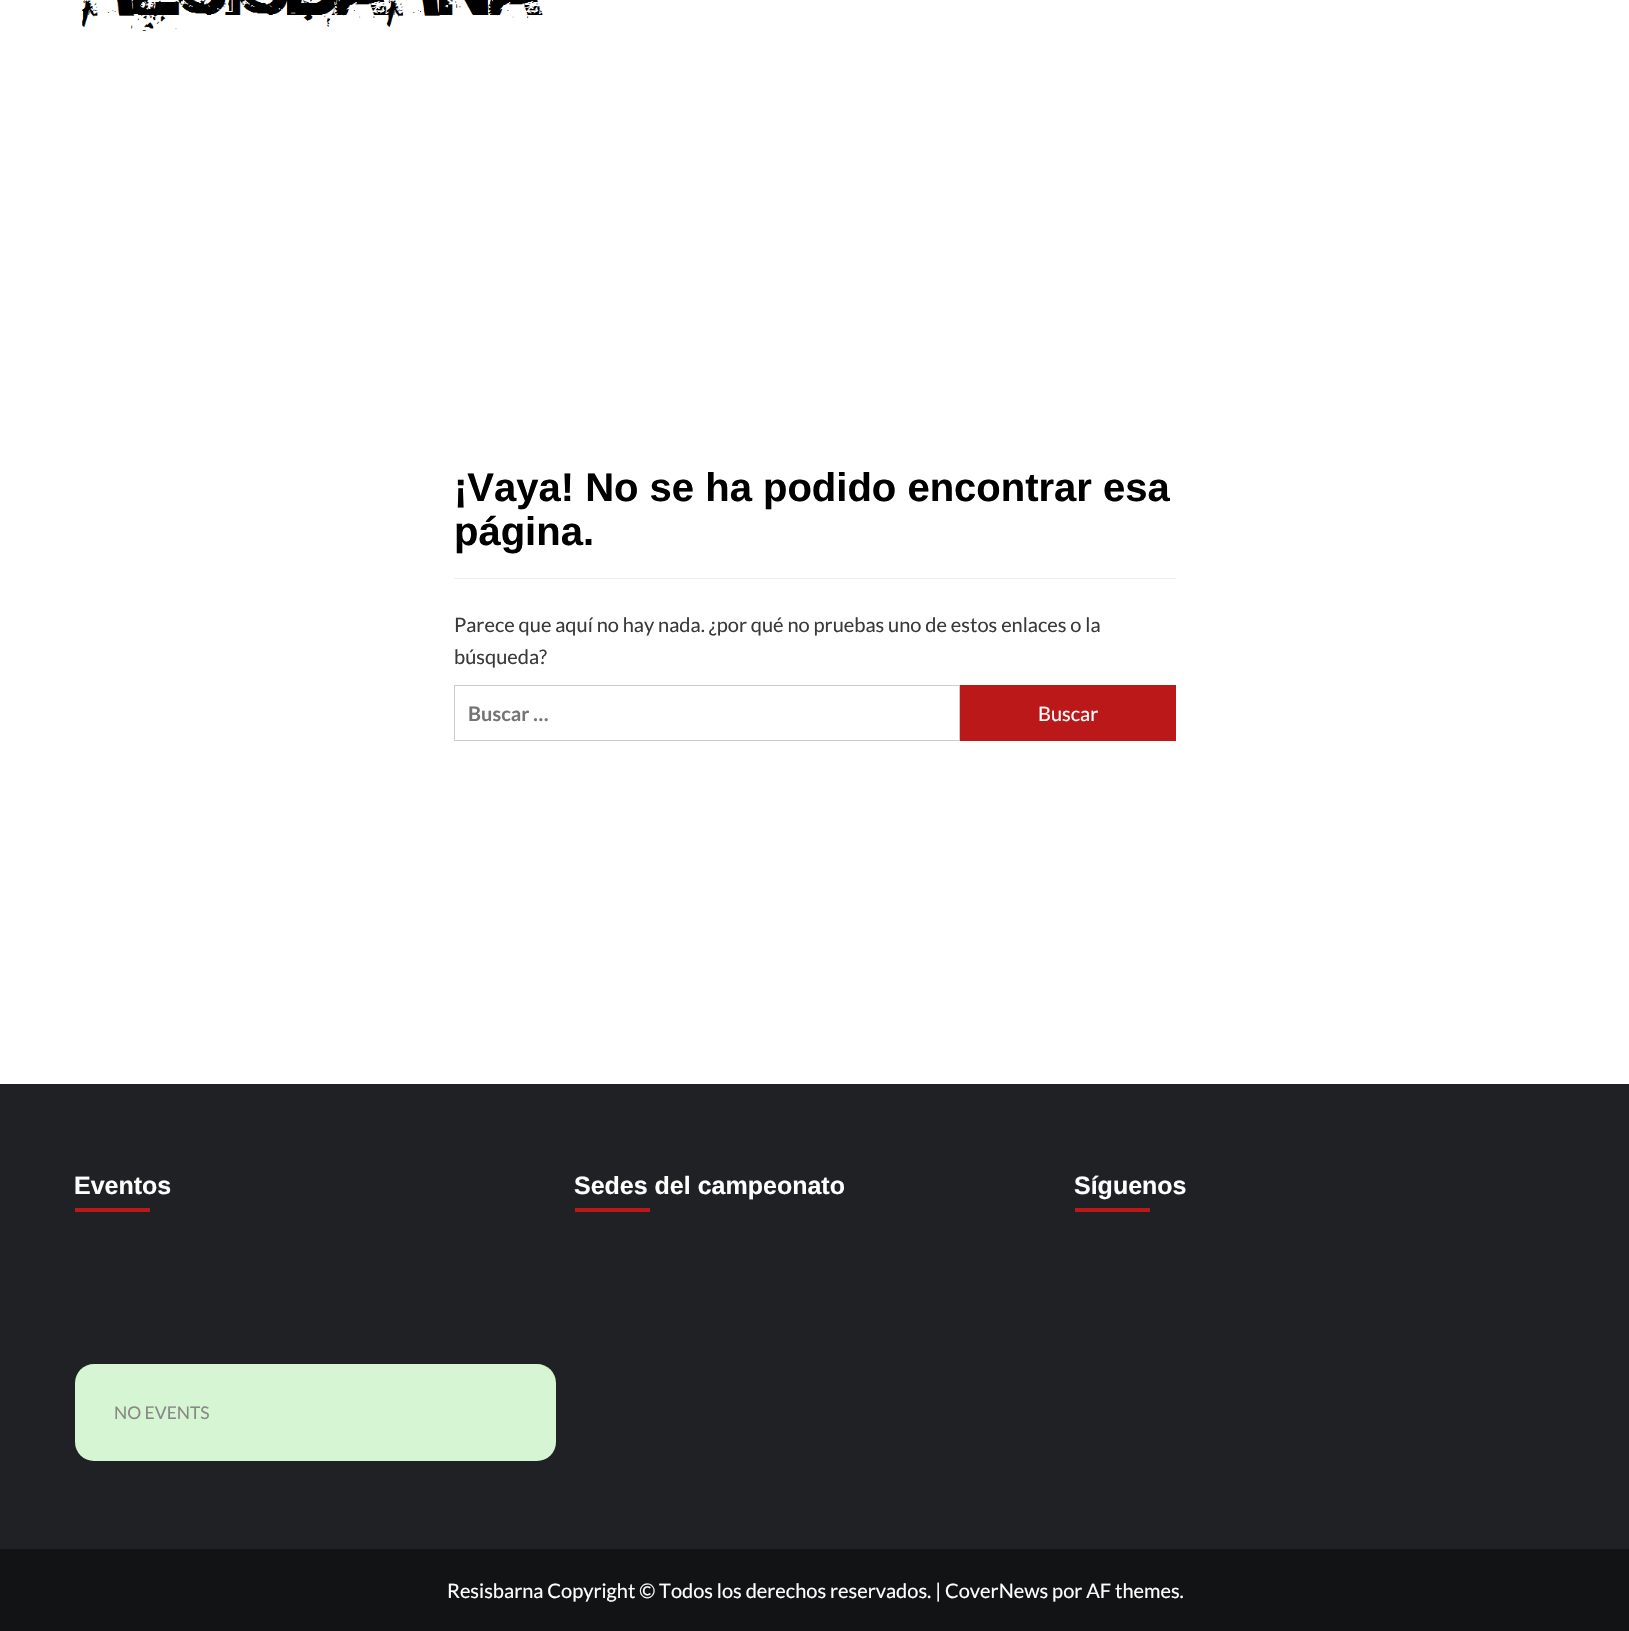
#include "include/core/SkBlurTypes.h"
#include "include/core/SkCanvas.h"
#include "include/core/SkData.h"
#include "include/core/SkFont.h"
#include "include/core/SkFontMgr.h"
#include "include/core/SkImage.h"
#include "include/core/SkMaskFilter.h"
#include "include/core/SkPaint.h"
#include "include/core/SkPathBuilder.h"
#include "include/core/SkTextBlob.h"
#include "include/effects/SkDashPathEffect.h"
#include "include/effects/SkGradientShader.h"
#include "include/utils/SkParsePath.h"

extern sk_sp<SkFontMgr> fontMgr;

void draw(SkCanvas* canvas) {
  SkPaint p;
  p.setAntiAlias(true);
  canvas->clear(SK_ColorWHITE);
  canvas->drawImageRect(SkImages::DeferredFromEncodedData(SkData::MakeFromFileName("images/1.png")), SkRect::MakeLTRB(82, 0, 543, 31), SkSamplingOptions());
  p.setColor(SkColorSetRGB(238, 238, 238));
  canvas->drawRect(SkRect::MakeLTRB(454, 578, 1176, 579), p);
  p.setStyle(SkPaint::kStroke_Style);
  p.setStrokeWidth(1);
  p.setColor(SkColorSetRGB(204, 204, 204));
  canvas->drawRect(SkRect::MakeLTRB(454.5f, 685.5f, 959.5f, 740.5f), p);
  p.setStyle(SkPaint::kFill_Style);
  p.setColor(SkColorSetRGB(187, 25, 25));
  canvas->drawRect(SkRect::MakeLTRB(960, 685, 1176, 741), p);
  p.setColor(SkColorSetRGB(31, 33, 37));
  canvas->drawRect(SkRect::MakeLTRB(0, 1084, 1629, 1549), p);
  p.setColor(SkColorSetRGB(187, 25, 25));
  canvas->drawRect(SkRect::MakeLTRB(75, 1208, 150, 1212), p);
  p.setColor(SkColorSetRGB(214, 245, 210));
  canvas->drawRoundRect(SkRect::MakeLTRB(75, 1364, 556, 1461), 19, 19, p);
  p.setColor(SkColorSetRGB(187, 25, 25));
  canvas->drawRect(SkRect::MakeLTRB(575, 1208, 650, 1212), p);
  canvas->drawRect(SkRect::MakeLTRB(1075, 1208, 1150, 1212), p);
  p.setColor(SkColorSetRGB(18, 19, 20));
  canvas->drawRect(SkRect::MakeLTRB(0, 1549, 1629, 1631), p);
  SkFont font1(fontMgr->matchFamilyStyle("Liberation Sans", SkFontStyle::Bold()), 40);
  font1.setSubpixel(true);
  p.setColor(SK_ColorBLACK);
  canvas->drawString("¡Vaya! No se ha podido encontrar esa", 454, 501, font1, p);
  canvas->drawString("página.", 454, 545, font1, p);
  SkFont font2(fontMgr->matchFamilyStyle("Lato", SkFontStyle::Normal()), 20);
  font2.setSubpixel(true);
  p.setColor(SkColorSetRGB(58, 58, 58));
  canvas->drawString("Parece que aquí no hay nada. ¿por qué no pruebas uno de estos enlaces o la", 454, 632, font2, p);
  canvas->drawString("búsqueda?", 454, 664, font2, p);
  SkFont font3(fontMgr->matchFamilyStyle("Lato", SkFontStyle::Bold()), 20);
  font3.setSubpixel(true);
  p.setColor(SkColorSetRGB(117, 117, 117));
  canvas->drawString("Buscar …", 468, 721, font3, p);
  p.setColor(SK_ColorWHITE);
  canvas->drawString("Buscar", 1038, 721, font2, p);
  SkFont font4(fontMgr->matchFamilyStyle("Liberation Sans", SkFontStyle::Bold()), 25);
  font4.setSubpixel(true);
  canvas->drawString("Eventos", 74, 1194, font4, p);
  SkFont font5(fontMgr->matchFamilyStyle("Lato", SkFontStyle::Normal()), 17.5f);
  font5.setSubpixel(true);
  p.setColor(SkColorSetRGB(136, 136, 136));
  canvas->drawString("NO EVENTS", 114, 1419, font5, p);
  p.setColor(SK_ColorWHITE);
  canvas->drawString("Sedes del campeonato", 574, 1194, font4, p);
  canvas->drawString("Síguenos", 1074, 1194, font4, p);
  canvas->drawString("Resisbarna Copyright © Todos los derechos reservados. | CoverNews por AF themes.", 447, 1598, font2, p);
}
